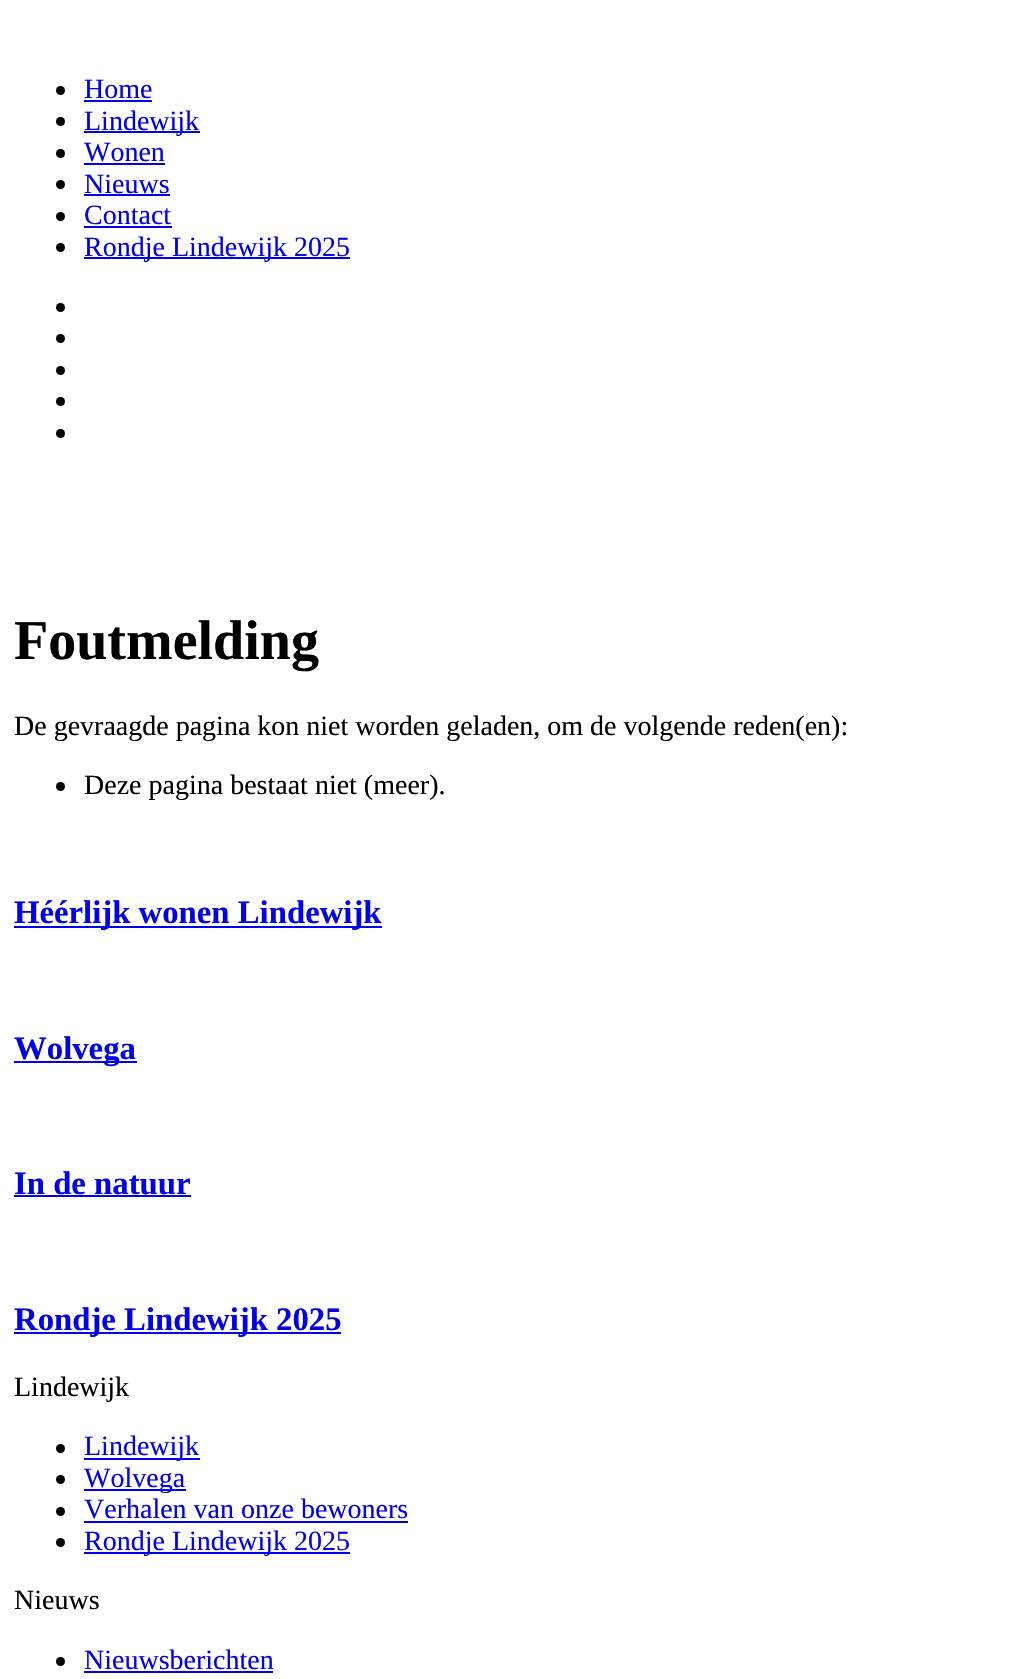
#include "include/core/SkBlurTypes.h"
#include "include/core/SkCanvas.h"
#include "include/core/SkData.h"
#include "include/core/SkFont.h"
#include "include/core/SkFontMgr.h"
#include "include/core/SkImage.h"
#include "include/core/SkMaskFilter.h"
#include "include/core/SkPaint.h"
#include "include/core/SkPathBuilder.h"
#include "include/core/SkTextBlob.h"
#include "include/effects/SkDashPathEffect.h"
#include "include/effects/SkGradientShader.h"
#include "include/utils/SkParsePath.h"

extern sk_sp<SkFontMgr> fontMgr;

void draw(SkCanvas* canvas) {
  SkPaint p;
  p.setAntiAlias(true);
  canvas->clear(SK_ColorWHITE);
  p.setColor(SK_ColorBLACK);
  canvas->drawCircle(60.5f, 90.5f, 4.5f, p);
  p.setColor(SkColorSetRGB(0, 0, 238));
  canvas->drawRect(SkRect::MakeLTRB(84, 100, 152, 102), p);
  p.setColor(SK_ColorBLACK);
  canvas->drawCircle(60.5f, 121.5f, 4.5f, p);
  p.setColor(SkColorSetRGB(0, 0, 238));
  canvas->drawRect(SkRect::MakeLTRB(84, 131, 200, 133), p);
  p.setColor(SK_ColorBLACK);
  canvas->drawCircle(60.5f, 153.5f, 4.5f, p);
  p.setColor(SkColorSetRGB(0, 0, 238));
  canvas->drawRect(SkRect::MakeLTRB(84, 163, 165, 165), p);
  p.setColor(SK_ColorBLACK);
  canvas->drawCircle(60.5f, 184.5f, 4.5f, p);
  p.setColor(SkColorSetRGB(0, 0, 238));
  canvas->drawRect(SkRect::MakeLTRB(84, 194, 170, 196), p);
  p.setColor(SK_ColorBLACK);
  canvas->drawCircle(60.5f, 216.5f, 4.5f, p);
  p.setColor(SkColorSetRGB(0, 0, 238));
  canvas->drawRect(SkRect::MakeLTRB(84, 226, 172, 228), p);
  p.setColor(SK_ColorBLACK);
  canvas->drawCircle(60.5f, 247.5f, 4.5f, p);
  p.setColor(SkColorSetRGB(0, 0, 238));
  canvas->drawRect(SkRect::MakeLTRB(84, 257, 350, 259), p);
  p.setColor(SK_ColorBLACK);
  canvas->drawCircle(60.5f, 307.5f, 4.5f, p);
  canvas->drawCircle(60.5f, 338.5f, 4.5f, p);
  canvas->drawCircle(60.5f, 370.5f, 4.5f, p);
  canvas->drawCircle(60.5f, 401.5f, 4.5f, p);
  canvas->drawCircle(60.5f, 433.5f, 4.5f, p);
  canvas->drawCircle(60.5f, 786.5f, 4.5f, p);
  p.setColor(SkColorSetRGB(0, 0, 238));
  canvas->drawRect(SkRect::MakeLTRB(14, 926, 382, 928), p);
  canvas->drawRect(SkRect::MakeLTRB(14, 1061, 137, 1063), p);
  canvas->drawRect(SkRect::MakeLTRB(14, 1195, 191, 1197), p);
  canvas->drawRect(SkRect::MakeLTRB(14, 1332, 341, 1334), p);
  p.setColor(SK_ColorBLACK);
  canvas->drawCircle(60.5f, 1448.5f, 4.5f, p);
  p.setColor(SkColorSetRGB(0, 0, 238));
  canvas->drawRect(SkRect::MakeLTRB(84, 1458, 200, 1460), p);
  p.setColor(SK_ColorBLACK);
  canvas->drawCircle(60.5f, 1479.5f, 4.5f, p);
  p.setColor(SkColorSetRGB(0, 0, 238));
  canvas->drawRect(SkRect::MakeLTRB(84, 1489, 186, 1491), p);
  p.setColor(SK_ColorBLACK);
  canvas->drawCircle(60.5f, 1511.5f, 4.5f, p);
  p.setColor(SkColorSetRGB(0, 0, 238));
  canvas->drawRect(SkRect::MakeLTRB(84, 1521, 408, 1523), p);
  p.setColor(SK_ColorBLACK);
  canvas->drawCircle(60.5f, 1542.5f, 4.5f, p);
  p.setColor(SkColorSetRGB(0, 0, 238));
  canvas->drawRect(SkRect::MakeLTRB(84, 1552, 350, 1554), p);
  p.setColor(SK_ColorBLACK);
  canvas->drawCircle(60.5f, 1661.5f, 4.5f, p);
  p.setColor(SkColorSetRGB(0, 0, 238));
  canvas->drawRect(SkRect::MakeLTRB(84, 1671, 273, 1673), p);
  SkFont font1(fontMgr->matchFamilyStyle("Liberation Serif", SkFontStyle::Normal()), 28);
  font1.setSubpixel(true);
  canvas->drawString("Home", 84, 98, font1, p);
  canvas->drawString("Lindewijk", 84, 130, font1, p);
  canvas->drawString("Wonen", 84, 161, font1, p);
  canvas->drawString("Nieuws", 84, 193, font1, p);
  canvas->drawString("Contact", 84, 224, font1, p);
  canvas->drawString("Rondje Lindewijk 2025", 84, 256, font1, p);
  SkFont font2(fontMgr->matchFamilyStyle("Liberation Serif", SkFontStyle::Bold()), 56);
  font2.setSubpixel(true);
  p.setColor(SK_ColorBLACK);
  canvas->drawString("Foutmelding", 14, 659, font2, p);
  canvas->drawString("De gevraagde pagina kon niet worden geladen, om de volgende reden(en):", 14, 735, font1, p);
  canvas->drawString("Deze pagina bestaat niet (meer).", 84, 794, font1, p);
  SkFont font3(fontMgr->matchFamilyStyle("Liberation Serif", SkFontStyle::Bold()), 32.75f);
  font3.setSubpixel(true);
  p.setColor(SkColorSetRGB(0, 0, 238));
  canvas->drawString("Héérlijk wonen Lindewijk", 14, 923, font3, p);
  canvas->drawString("Wolvega", 14, 1059, font3, p);
  canvas->drawString("In de natuur", 14, 1194, font3, p);
  canvas->drawString("Rondje Lindewijk 2025", 14, 1330, font3, p);
  p.setColor(SK_ColorBLACK);
  canvas->drawString("Lindewijk", 14, 1396, font1, p);
  p.setColor(SkColorSetRGB(0, 0, 238));
  canvas->drawString("Lindewijk", 84, 1455, font1, p);
  canvas->drawString("Wolvega", 84, 1487, font1, p);
  canvas->drawString("Verhalen van onze bewoners", 84, 1518, font1, p);
  canvas->drawString("Rondje Lindewijk 2025", 84, 1550, font1, p);
  p.setColor(SK_ColorBLACK);
  canvas->drawString("Nieuws", 14, 1609, font1, p);
  p.setColor(SkColorSetRGB(0, 0, 238));
  canvas->drawString("Nieuwsberichten", 84, 1669, font1, p);
}
